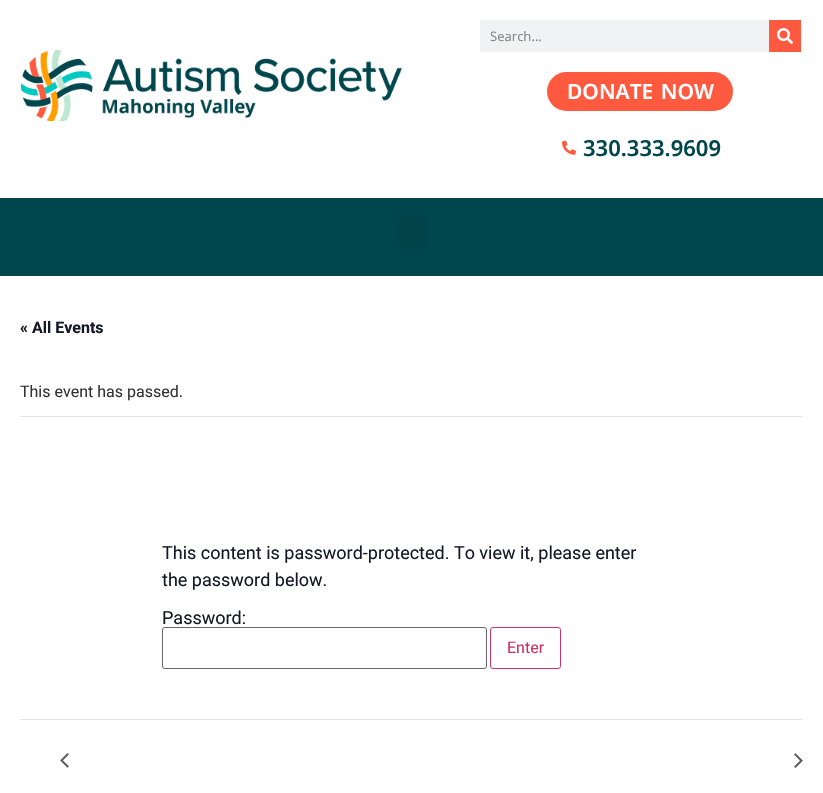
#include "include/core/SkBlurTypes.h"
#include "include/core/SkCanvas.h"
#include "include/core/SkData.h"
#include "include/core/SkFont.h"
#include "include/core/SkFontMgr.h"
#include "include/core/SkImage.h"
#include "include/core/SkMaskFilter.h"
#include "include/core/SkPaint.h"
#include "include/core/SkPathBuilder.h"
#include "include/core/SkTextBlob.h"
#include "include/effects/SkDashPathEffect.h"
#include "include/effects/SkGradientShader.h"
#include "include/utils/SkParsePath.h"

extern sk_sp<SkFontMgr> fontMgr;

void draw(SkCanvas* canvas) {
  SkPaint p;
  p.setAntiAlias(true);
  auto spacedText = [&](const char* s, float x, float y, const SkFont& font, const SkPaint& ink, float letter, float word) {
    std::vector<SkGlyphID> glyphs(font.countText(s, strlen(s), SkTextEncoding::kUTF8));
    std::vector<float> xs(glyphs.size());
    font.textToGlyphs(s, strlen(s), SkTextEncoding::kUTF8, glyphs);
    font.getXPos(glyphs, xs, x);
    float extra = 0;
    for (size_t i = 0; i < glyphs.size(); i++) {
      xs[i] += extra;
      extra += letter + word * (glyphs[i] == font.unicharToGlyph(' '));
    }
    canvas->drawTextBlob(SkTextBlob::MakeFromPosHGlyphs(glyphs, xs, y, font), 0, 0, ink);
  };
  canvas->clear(SK_ColorWHITE);
  canvas->drawImageRect(SkImages::DeferredFromEncodedData(SkData::MakeFromFileName("images/1.png")), SkRect::MakeLTRB(21, 50, 402, 121), SkSamplingOptions());
  p.setColor(SkColorSetRGB(241, 242, 243));
  canvas->drawRect(SkRect::MakeLTRB(480, 20, 769, 52), p);
  p.setColor(SkColorSetRGB(255, 90, 63));
  canvas->drawRect(SkRect::MakeLTRB(769, 20, 801, 52), p);
  canvas->drawImageRect(SkImages::DeferredFromEncodedData(SkData::MakeFromFileName("images/2.png")), SkRect::MakeLTRB(777, 28, 793, 44), SkSamplingOptions());
  canvas->drawRoundRect(SkRect::MakeLTRB(547, 72, 733, 111), 19.5f, 19.5f, p);
  canvas->drawImageRect(SkImages::DeferredFromEncodedData(SkData::MakeFromFileName("images/3.png")), SkRect::MakeLTRB(562, 140, 576, 155), SkSamplingOptions());
  p.setColor(SkColorSetRGB(0, 70, 77));
  canvas->drawRect(SkRect::MakeLTRB(0, 198, 823, 276), p);
  p.setColor(SkColorSetRGB(0, 67, 73));
  canvas->drawRoundRect(SkRect::MakeLTRB(397, 214, 426, 247), 3, 3, p);
  p.setColor(SkColorSetRGB(228, 228, 228));
  canvas->drawRect(SkRect::MakeLTRB(20, 416, 803, 417), p);
  p.setStyle(SkPaint::kStroke_Style);
  p.setStrokeWidth(1);
  p.setColor(SkColorSetRGB(102, 102, 102));
  canvas->drawRoundRect(SkRect::MakeLTRB(162.5f, 627.5f, 486.5f, 668.5f), 2.5f, 2.5f, p);
  p.setColor(SkColorSetRGB(204, 51, 102));
  canvas->drawRoundRect(SkRect::MakeLTRB(490.5f, 627.5f, 560.5f, 668.5f), 2.5f, 2.5f, p);
  p.setStyle(SkPaint::kFill_Style);
  p.setColor(SkColorSetRGB(228, 228, 228));
  canvas->drawRect(SkRect::MakeLTRB(20, 719, 803, 720), p);
  canvas->drawImageRect(SkImages::DeferredFromEncodedData(SkData::MakeFromFileName("images/4.png")), SkRect::MakeLTRB(60, 753, 69, 768), SkSamplingOptions());
  canvas->drawImageRect(SkImages::DeferredFromEncodedData(SkData::MakeFromFileName("images/5.png")), SkRect::MakeLTRB(794, 753, 803, 768), SkSamplingOptions());
  SkFont font1(fontMgr->matchFamilyStyle("Noto Sans", SkFontStyle::Normal()), 13);
  font1.setSubpixel(true);
  p.setColor(SkColorSetRGB(134, 138, 142));
  canvas->drawString("Search...", 490, 41, font1, p);
  SkFont font2(fontMgr->matchFamilyStyle("Noto Sans", SkFontStyle(600, SkFontStyle::kNormal_Width, SkFontStyle::kUpright_Slant)), 21);
  font2.setSubpixel(true);
  p.setColor(SK_ColorWHITE);
  spacedText("DONATE NOW", 567, 99, font2, p, 0, 2);
  SkFont font3(fontMgr->matchFamilyStyle("Noto Sans", SkFontStyle(600, SkFontStyle::kNormal_Width, SkFontStyle::kUpright_Slant)), 22);
  font3.setSubpixel(true);
  p.setColor(SkColorSetRGB(0, 70, 77));
  canvas->drawString("330.333.9609", 583, 156, font3, p);
  SkFont font4(fontMgr->matchFamilyStyle("Roboto", SkFontStyle::Bold()), 16);
  font4.setSubpixel(true);
  p.setColor(SkColorSetRGB(20, 24, 39));
  canvas->drawString("« All Events", 20, 333, font4, p);
  SkFont font5(fontMgr->matchFamilyStyle("Roboto", SkFontStyle::Normal()), 16);
  font5.setSubpixel(true);
  p.setColor(SkColorSetRGB(51, 51, 51));
  canvas->drawString("This event has passed.", 20, 397, font5, p);
  SkFont font6(fontMgr->matchFamilyStyle("Roboto", SkFontStyle::Normal()), 18);
  font6.setSubpixel(true);
  p.setColor(SkColorSetRGB(20, 24, 39));
  canvas->drawString("This content is password-protected. To view it, please enter", 162, 559, font6, p);
  canvas->drawString("the password below.", 162, 586, font6, p);
  canvas->drawString("Password:", 162, 624, font6, p);
  p.setColor(SkColorSetRGB(204, 51, 102));
  canvas->drawString("Enter", 507, 653, font5, p);
}
